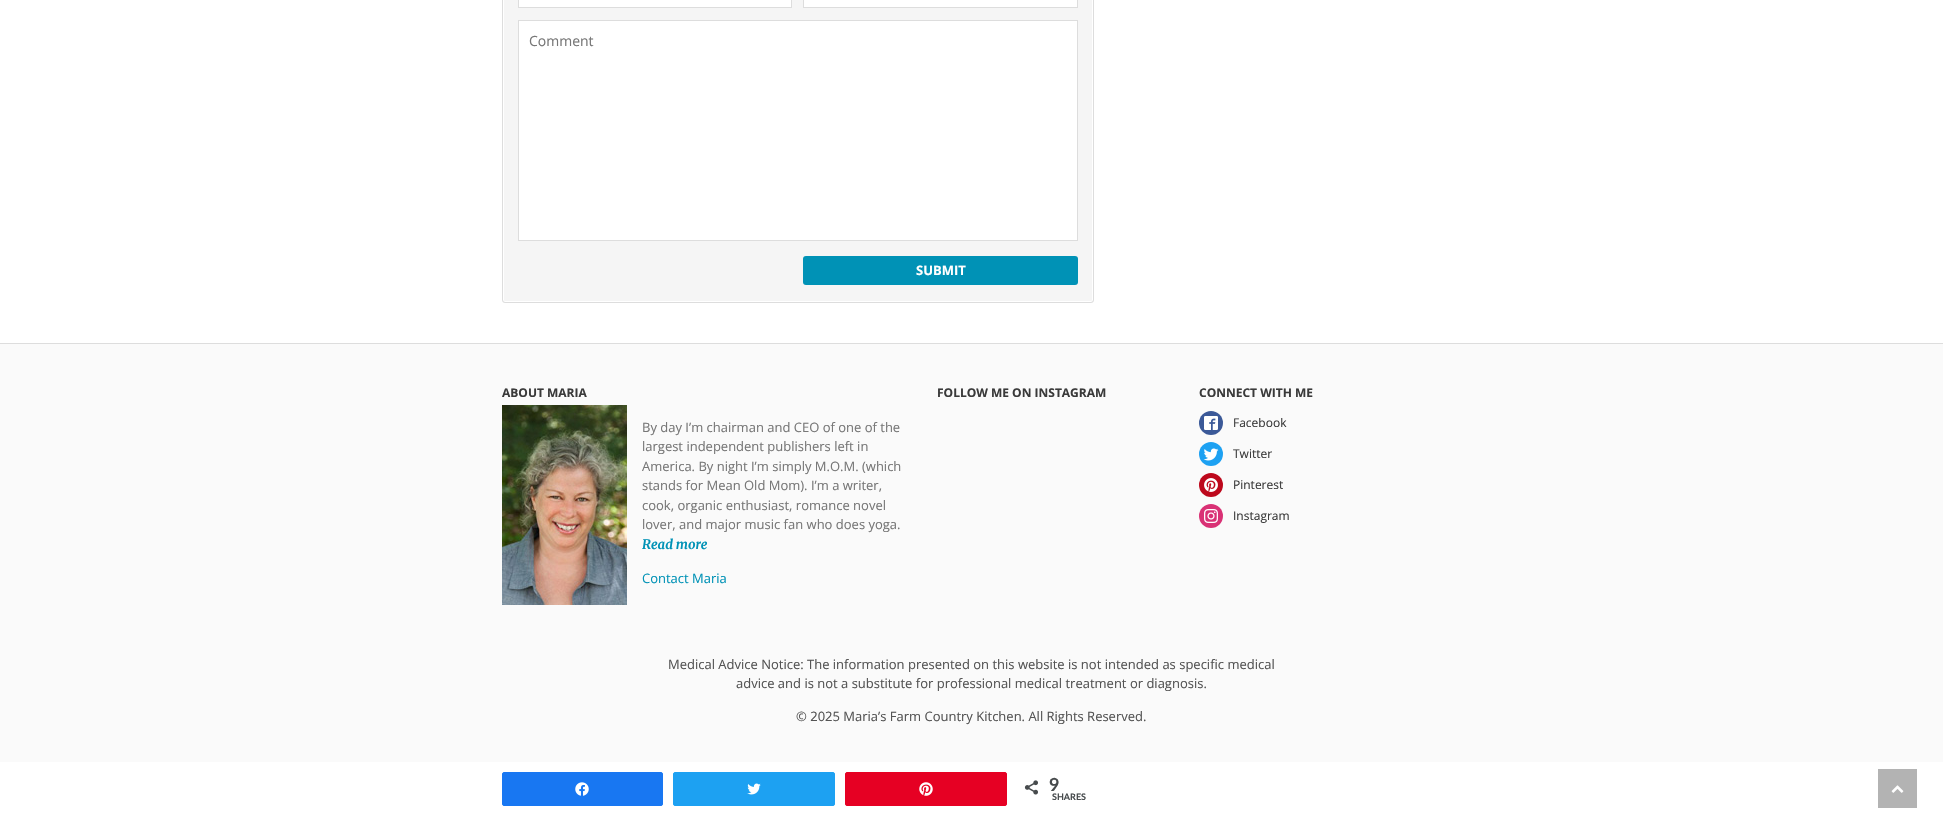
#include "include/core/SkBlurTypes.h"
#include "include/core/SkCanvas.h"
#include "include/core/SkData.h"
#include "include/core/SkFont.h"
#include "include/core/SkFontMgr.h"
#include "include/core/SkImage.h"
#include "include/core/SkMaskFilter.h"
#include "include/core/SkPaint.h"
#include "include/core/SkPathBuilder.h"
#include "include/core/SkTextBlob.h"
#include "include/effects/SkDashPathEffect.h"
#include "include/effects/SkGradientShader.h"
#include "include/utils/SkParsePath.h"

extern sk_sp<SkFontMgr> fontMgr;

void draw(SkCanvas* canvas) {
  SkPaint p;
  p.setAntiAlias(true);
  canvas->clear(SK_ColorWHITE);
  p.setColor(SkColorSetRGB(245, 245, 245));
  canvas->drawRoundRect(SkRect::MakeLTRB(502, -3, 1094, 303), 3, 3, p);
  p.setStyle(SkPaint::kStroke_Style);
  p.setStrokeWidth(1);
  p.setColor(SK_ColorWHITE);
  canvas->drawRoundRect(SkRect::MakeLTRB(503.5f, -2.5f, 1092.5f, 301.5f), 1.5f, 1.5f, p);
  p.setColor(SkColorSetRGB(221, 221, 221));
  canvas->drawRoundRect(SkRect::MakeLTRB(502.5f, -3.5f, 1093.5f, 302.5f), 2.5f, 2.5f, p);
  p.setStyle(SkPaint::kFill_Style);
  p.setColor(SK_ColorWHITE);
  canvas->drawRect(SkRect::MakeLTRB(518.5f, -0.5f, 791.5f, 7.5f), p);
  p.setStyle(SkPaint::kStroke_Style);
  p.setColor(SkColorSetRGB(221, 221, 221));
  canvas->drawRect(SkRect::MakeLTRB(518.5f, -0.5f, 791.5f, 7.5f), p);
  p.setStyle(SkPaint::kFill_Style);
  p.setColor(SK_ColorWHITE);
  canvas->drawRect(SkRect::MakeLTRB(803.5f, -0.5f, 1077.5f, 7.5f), p);
  p.setStyle(SkPaint::kStroke_Style);
  p.setColor(SkColorSetRGB(221, 221, 221));
  canvas->drawRect(SkRect::MakeLTRB(803.5f, -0.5f, 1077.5f, 7.5f), p);
  p.setStyle(SkPaint::kFill_Style);
  p.setColor(SK_ColorWHITE);
  canvas->drawRect(SkRect::MakeLTRB(518.5f, 20.5f, 1077.5f, 240.5f), p);
  p.setStyle(SkPaint::kStroke_Style);
  p.setColor(SkColorSetRGB(221, 221, 221));
  canvas->drawRect(SkRect::MakeLTRB(518.5f, 20.5f, 1077.5f, 240.5f), p);
  p.setStyle(SkPaint::kFill_Style);
  p.setColor(SkColorSetRGB(0, 146, 182));
  canvas->drawRoundRect(SkRect::MakeLTRB(803, 256, 1078, 285), 3, 3, p);
  p.setColor(SkColorSetRGB(250, 250, 250));
  canvas->drawRect(SkRect::MakeLTRB(0, 344, 1943, 762), p);
  p.setColor(SkColorSetRGB(221, 221, 221));
  canvas->drawRect(SkRect::MakeLTRB(0, 343, 1943, 344), p);
  canvas->drawImageRect(SkImages::DeferredFromEncodedData(SkData::MakeFromFileName("images/1.png")), SkRect::MakeLTRB(502, 405, 627, 605), SkSamplingOptions());
  p.setColor(SkColorSetRGB(59, 89, 152));
  canvas->drawCircle(1211, 423, 12, p);
  canvas->drawImageRect(SkImages::DeferredFromEncodedData(SkData::MakeFromFileName("images/2.png")), SkRect::MakeLTRB(1204, 416, 1218, 430), SkSamplingOptions());
  p.setColor(SkColorSetRGB(29, 161, 242));
  canvas->drawCircle(1211, 454, 12, p);
  canvas->drawImageRect(SkImages::DeferredFromEncodedData(SkData::MakeFromFileName("images/3.png")), SkRect::MakeLTRB(1203, 448, 1219, 461), SkSamplingOptions());
  p.setColor(SkColorSetRGB(189, 8, 28));
  canvas->drawCircle(1211, 485, 12, p);
  canvas->drawImageRect(SkImages::DeferredFromEncodedData(SkData::MakeFromFileName("images/4.png")), SkRect::MakeLTRB(1204, 478, 1218, 492), SkSamplingOptions());
  p.setColor(SkColorSetRGB(217, 49, 117));
  canvas->drawCircle(1211, 516, 12, p);
  canvas->drawImageRect(SkImages::DeferredFromEncodedData(SkData::MakeFromFileName("images/5.png")), SkRect::MakeLTRB(1204, 509, 1218, 523), SkSamplingOptions());
  p.setColor(SkColorSetRGB(24, 119, 242));
  canvas->drawRoundRect(SkRect::MakeLTRB(502.5f, 772.5f, 662.5f, 805.5f), 1.5f, 1.5f, p);
  p.setStyle(SkPaint::kStroke_Style);
  canvas->drawRoundRect(SkRect::MakeLTRB(502.5f, 772.5f, 662.5f, 805.5f), 1.5f, 1.5f, p);
  canvas->drawImageRect(SkImages::DeferredFromEncodedData(SkData::MakeFromFileName("images/6.png")), SkRect::MakeLTRB(575, 782, 589, 796), SkSamplingOptions());
  p.setStyle(SkPaint::kFill_Style);
  p.setColor(SkColorSetRGB(29, 161, 242));
  canvas->drawRoundRect(SkRect::MakeLTRB(673.5f, 772.5f, 834.5f, 805.5f), 1.5f, 1.5f, p);
  p.setStyle(SkPaint::kStroke_Style);
  canvas->drawRoundRect(SkRect::MakeLTRB(673.5f, 772.5f, 834.5f, 805.5f), 1.5f, 1.5f, p);
  canvas->drawImageRect(SkImages::DeferredFromEncodedData(SkData::MakeFromFileName("images/7.png")), SkRect::MakeLTRB(747, 783, 761, 795), SkSamplingOptions());
  p.setStyle(SkPaint::kFill_Style);
  p.setColor(SkColorSetRGB(230, 0, 35));
  canvas->drawRoundRect(SkRect::MakeLTRB(845.5f, 772.5f, 1006.5f, 805.5f), 1.5f, 1.5f, p);
  p.setStyle(SkPaint::kStroke_Style);
  canvas->drawRoundRect(SkRect::MakeLTRB(845.5f, 772.5f, 1006.5f, 805.5f), 1.5f, 1.5f, p);
  canvas->drawImageRect(SkImages::DeferredFromEncodedData(SkData::MakeFromFileName("images/8.png")), SkRect::MakeLTRB(919, 782, 933, 796), SkSamplingOptions());
  canvas->drawImageRect(SkImages::DeferredFromEncodedData(SkData::MakeFromFileName("images/9.png")), SkRect::MakeLTRB(1024, 780, 1038, 795), SkSamplingOptions());
  p.setStyle(SkPaint::kFill_Style);
  p.setColor(SkColorSetRGB(179, 179, 179));
  canvas->drawRect(SkRect::MakeLTRB(1878, 769, 1917, 808), p);
  canvas->drawImageRect(SkImages::DeferredFromEncodedData(SkData::MakeFromFileName("images/10.png")), SkRect::MakeLTRB(1891, 785, 1904, 793), SkSamplingOptions());
  SkFont font1(fontMgr->matchFamilyStyle("Open Sans", SkFontStyle::Normal()), 14);
  font1.setSubpixel(true);
  p.setColor(SkColorSetRGB(119, 119, 119));
  canvas->drawString("Comment", 529, 46, font1, p);
  SkFont font2(fontMgr->matchFamilyStyle("Open Sans", SkFontStyle::Bold()), 13);
  font2.setSubpixel(true);
  p.setColor(SK_ColorWHITE);
  canvas->drawString("SUBMIT", 916, 275, font2, p);
  SkFont font3(fontMgr->matchFamilyStyle("Open Sans", SkFontStyle::Bold()), 12);
  font3.setSubpixel(true);
  p.setColor(SkColorSetRGB(58, 58, 58));
  canvas->drawString("ABOUT MARIA", 502, 397, font3, p);
  SkFont font4(fontMgr->matchFamilyStyle("Open Sans", SkFontStyle::Normal()), 13);
  font4.setSubpixel(true);
  p.setColor(SkColorSetRGB(119, 119, 119));
  canvas->drawString("By day I’m chairman and CEO of one of the", 642, 432, font4, p);
  canvas->drawString("largest independent publishers left in", 642, 451, font4, p);
  canvas->drawString("America. By night I’m simply M.O.M. (which", 642, 471, font4, p);
  canvas->drawString("stands for Mean Old Mom). I’m a writer,", 642, 490, font4, p);
  canvas->drawString("cook, organic enthusiast, romance novel", 642, 510, font4, p);
  canvas->drawString("lover, and major music fan who does yoga.", 642, 529, font4, p);
  SkFont font5(fontMgr->matchFamilyStyle("Merriweather", SkFontStyle::BoldItalic()), 13);
  font5.setSubpixel(true);
  p.setColor(SkColorSetRGB(0, 146, 182));
  canvas->drawString("Read more", 642, 549, font5, p);
  canvas->drawString("Contact Maria", 642, 583, font4, p);
  p.setColor(SkColorSetRGB(58, 58, 58));
  canvas->drawString("FOLLOW ME ON INSTAGRAM", 937, 397, font3, p);
  canvas->drawString("CONNECT WITH ME", 1199, 397, font3, p);
  SkFont font6(fontMgr->matchFamilyStyle("Open Sans", SkFontStyle::Normal()), 12);
  font6.setSubpixel(true);
  canvas->drawString("Facebook", 1233, 427, font6, p);
  canvas->drawString("Twitter", 1233, 458, font6, p);
  canvas->drawString("Pinterest", 1233, 489, font6, p);
  canvas->drawString("Instagram", 1233, 520, font6, p);
  p.setColor(SkColorSetRGB(84, 84, 84));
  canvas->drawString("Medical Advice Notice: The information presented on this website is not intended as specific medical", 668, 669, font4, p);
  canvas->drawString("advice and is not a substitute for professional medical treatment or diagnosis.", 736, 688, font4, p);
  canvas->drawString("© 2025 Maria’s Farm Country Kitchen. All Rights Reserved.", 796, 721, font4, p);
  SkFont font7(fontMgr->matchFamilyStyle("Lato", SkFontStyle::Bold()), 18);
  font7.setSubpixel(true);
  p.setColor(SkColorSetRGB(71, 75, 77));
  canvas->drawString("9", 1049, 791, font7, p);
  SkFont font8(fontMgr->matchFamilyStyle("Lato", SkFontStyle::Bold()), 9);
  font8.setSubpixel(true);
  canvas->drawString("SHARES", 1052, 800, font8, p);
}
